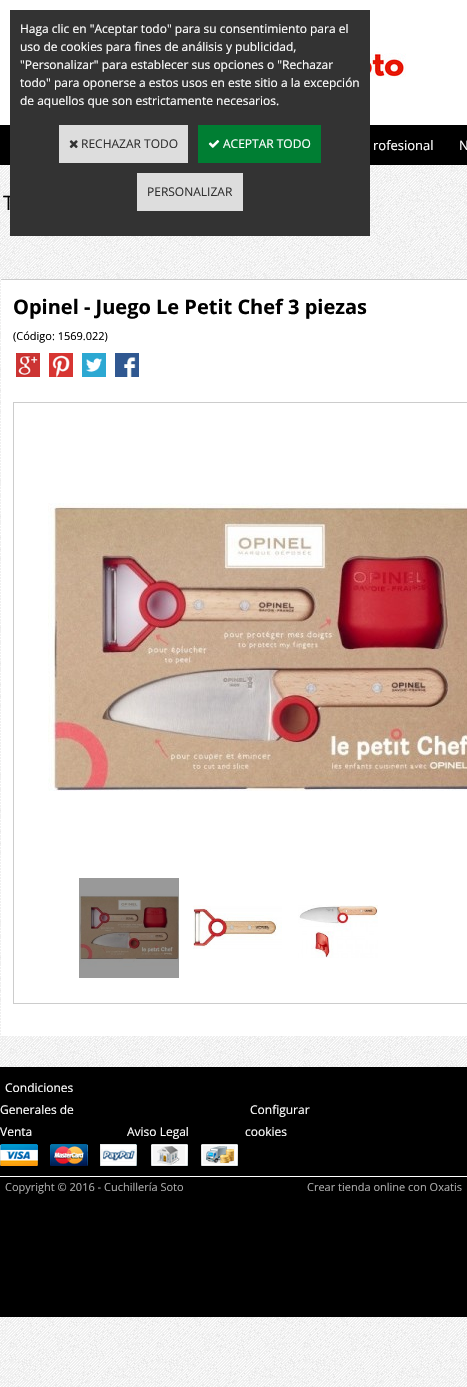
#include "include/core/SkBlurTypes.h"
#include "include/core/SkCanvas.h"
#include "include/core/SkData.h"
#include "include/core/SkFont.h"
#include "include/core/SkFontMgr.h"
#include "include/core/SkImage.h"
#include "include/core/SkMaskFilter.h"
#include "include/core/SkPaint.h"
#include "include/core/SkPathBuilder.h"
#include "include/core/SkTextBlob.h"
#include "include/effects/SkDashPathEffect.h"
#include "include/effects/SkGradientShader.h"
#include "include/utils/SkParsePath.h"

extern sk_sp<SkFontMgr> fontMgr;

void draw(SkCanvas* canvas) {
  SkPaint p;
  p.setAntiAlias(true);
  canvas->clear(SK_ColorWHITE);
  canvas->drawImageRect(SkImages::DeferredFromEncodedData(SkData::MakeFromFileName("images/1.png")), SkRect::MakeLTRB(0, 165, 467, 1387), SkSamplingOptions());
  p.setColor(SK_ColorBLACK);
  canvas->drawRect(SkRect::MakeLTRB(0, 125, 467, 165), p);
  canvas->drawImageRect(SkImages::DeferredFromEncodedData(SkData::MakeFromFileName("images/4.png")), SkRect::MakeLTRB(370, 45, 406, 78), SkSamplingOptions());
  p.setColor(SK_ColorWHITE);
  canvas->drawRect(SkRect::MakeLTRB(1, 280, 467, 1036), p);
  p.setColor(SkColorSetRGB(204, 204, 204));
  canvas->drawRect(SkRect::MakeLTRB(1, 279, 467, 280), p);
  canvas->drawImageRect(SkImages::DeferredFromEncodedData(SkData::MakeFromFileName("images/5.png")), SkRect::MakeLTRB(16, 353, 40, 377), SkSamplingOptions());
  canvas->drawImageRect(SkImages::DeferredFromEncodedData(SkData::MakeFromFileName("images/6.png")), SkRect::MakeLTRB(49, 353, 73, 377), SkSamplingOptions());
  canvas->drawImageRect(SkImages::DeferredFromEncodedData(SkData::MakeFromFileName("images/7.png")), SkRect::MakeLTRB(82, 353, 106, 377), SkSamplingOptions());
  canvas->drawImageRect(SkImages::DeferredFromEncodedData(SkData::MakeFromFileName("images/8.png")), SkRect::MakeLTRB(115, 353, 139, 377), SkSamplingOptions());
  p.setStyle(SkPaint::kStroke_Style);
  p.setStrokeWidth(1);
  canvas->drawRect(SkRect::MakeLTRB(13.5f, 402.5f, 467.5f, 1003.5f), p);
  canvas->drawImageRect(SkImages::DeferredFromEncodedData(SkData::MakeFromFileName("images/9.png")), SkRect::MakeLTRB(48, 503, 467, 791), SkSamplingOptions());
  canvas->drawImageRect(SkImages::DeferredFromEncodedData(SkData::MakeFromFileName("images/10.png")), SkRect::MakeLTRB(79, 878, 179, 978), SkSamplingOptions());
  canvas->drawImageRect(SkImages::DeferredFromEncodedData(SkData::MakeFromFileName("images/11.png")), SkRect::MakeLTRB(193, 905, 282, 949), SkSamplingOptions());
  canvas->drawImageRect(SkImages::DeferredFromEncodedData(SkData::MakeFromFileName("images/12.png")), SkRect::MakeLTRB(298, 905, 378, 958), SkSamplingOptions());
  p.setStyle(SkPaint::kFill_Style);
  p.setColor(SK_ColorBLACK);
  canvas->drawRect(SkRect::MakeLTRB(0, 1067, 467, 1317), p);
  p.setColor(SK_ColorWHITE);
  canvas->drawRect(SkRect::MakeLTRB(0, 1176, 467, 1177), p);
  canvas->drawImageRect(SkImages::DeferredFromEncodedData(SkData::MakeFromFileName("images/13.png")), SkRect::MakeLTRB(0, 1144, 238, 1166), SkSamplingOptions());
  SkFont font1(fontMgr->matchFamilyStyle("Open Sans", SkFontStyle::Normal()), 13);
  font1.setSubpixel(true);
  canvas->drawString("rofesional", 373, 150, font1, p);
  canvas->drawString("N", 459, 150, font1, p);
  SkFont font2(fontMgr->matchFamilyStyle("Open Sans", SkFontStyle::Normal()), 20);
  font2.setSubpixel(true);
  p.setColor(SK_ColorBLACK);
  canvas->drawString("T", 3, 210, font2, p);
  p.setColor(SkColorSetRGB(51, 51, 51));
  canvas->drawRect(SkRect::MakeLTRB(10, 10, 370, 236), p);
  p.setColor(SkColorSetRGB(221, 221, 221));
  canvas->drawRect(SkRect::MakeLTRB(137, 173, 243, 211), p);
  SkFont font3(fontMgr->matchFamilyStyle("Open Sans", SkFontStyle::Normal()), 12);
  font3.setSubpixel(true);
  p.setColor(SkColorSetRGB(51, 51, 51));
  canvas->drawString("PERSONALIZAR", 147, 196, font3, p);
  p.setColor(SkColorSetRGB(0, 126, 51));
  canvas->drawRect(SkRect::MakeLTRB(198, 125, 321, 163), p);
  p.setColor(SK_ColorWHITE);
  canvas->drawString("ACEPTAR TODO", 223, 148, font3, p);
  canvas->drawImageRect(SkImages::DeferredFromEncodedData(SkData::MakeFromFileName("images/3.png")), SkRect::MakeLTRB(208, 140, 220, 148), SkSamplingOptions());
  p.setColor(SkColorSetRGB(221, 221, 221));
  canvas->drawRect(SkRect::MakeLTRB(59, 125, 188, 163), p);
  p.setColor(SkColorSetRGB(51, 51, 51));
  canvas->drawString("RECHAZAR TODO", 81, 148, font3, p);
  canvas->drawImageRect(SkImages::DeferredFromEncodedData(SkData::MakeFromFileName("images/2.png")), SkRect::MakeLTRB(69, 140, 78, 149), SkSamplingOptions());
  p.setColor(SK_ColorWHITE);
  canvas->drawString("de aquellos que son estrictamente necesarios.", 20, 105, font3, p);
  canvas->drawString("todo\" para oponerse a estos usos en este sitio a la excepción", 20, 87, font3, p);
  canvas->drawString("\"Personalizar\" para establecer sus opciones o \"Rechazar", 20, 69, font3, p);
  canvas->drawString("uso de cookies para fines de análisis y publicidad,", 20, 51, font3, p);
  canvas->drawString("Haga clic en \"Aceptar todo\" para su consentimiento para el", 20, 33, font3, p);
  SkFont font4(fontMgr->matchFamilyStyle("Open Sans", SkFontStyle::Bold()), 20);
  font4.setSubpixel(true);
  p.setColor(SK_ColorBLACK);
  canvas->drawString("Opinel - Juego Le Petit Chef 3 piezas", 13, 314, font4, p);
  SkFont font5(fontMgr->matchFamilyStyle("Open Sans", SkFontStyle::Normal()), 11);
  font5.setSubpixel(true);
  canvas->drawString("(Código: 1569.022)", 13, 340, font5, p);
  p.setColor(SK_ColorWHITE);
  canvas->drawString("Condiciones", 5, 1092, font3, p);
  canvas->drawString("Generales de", 0, 1114, font3, p);
  canvas->drawString("Venta", 0, 1136, font3, p);
  canvas->drawString("Aviso Legal", 127, 1136, font3, p);
  canvas->drawString("Configurar", 250, 1114, font3, p);
  canvas->drawString("cookies", 245, 1136, font3, p);
  p.setColor(SkColorSetRGB(172, 172, 172));
  canvas->drawString("Copyright © 2016 - Cuchillería Soto", 5, 1191, font5, p);
  canvas->drawString("Crear tienda online con Oxatis", 307, 1191, font5, p);
}
